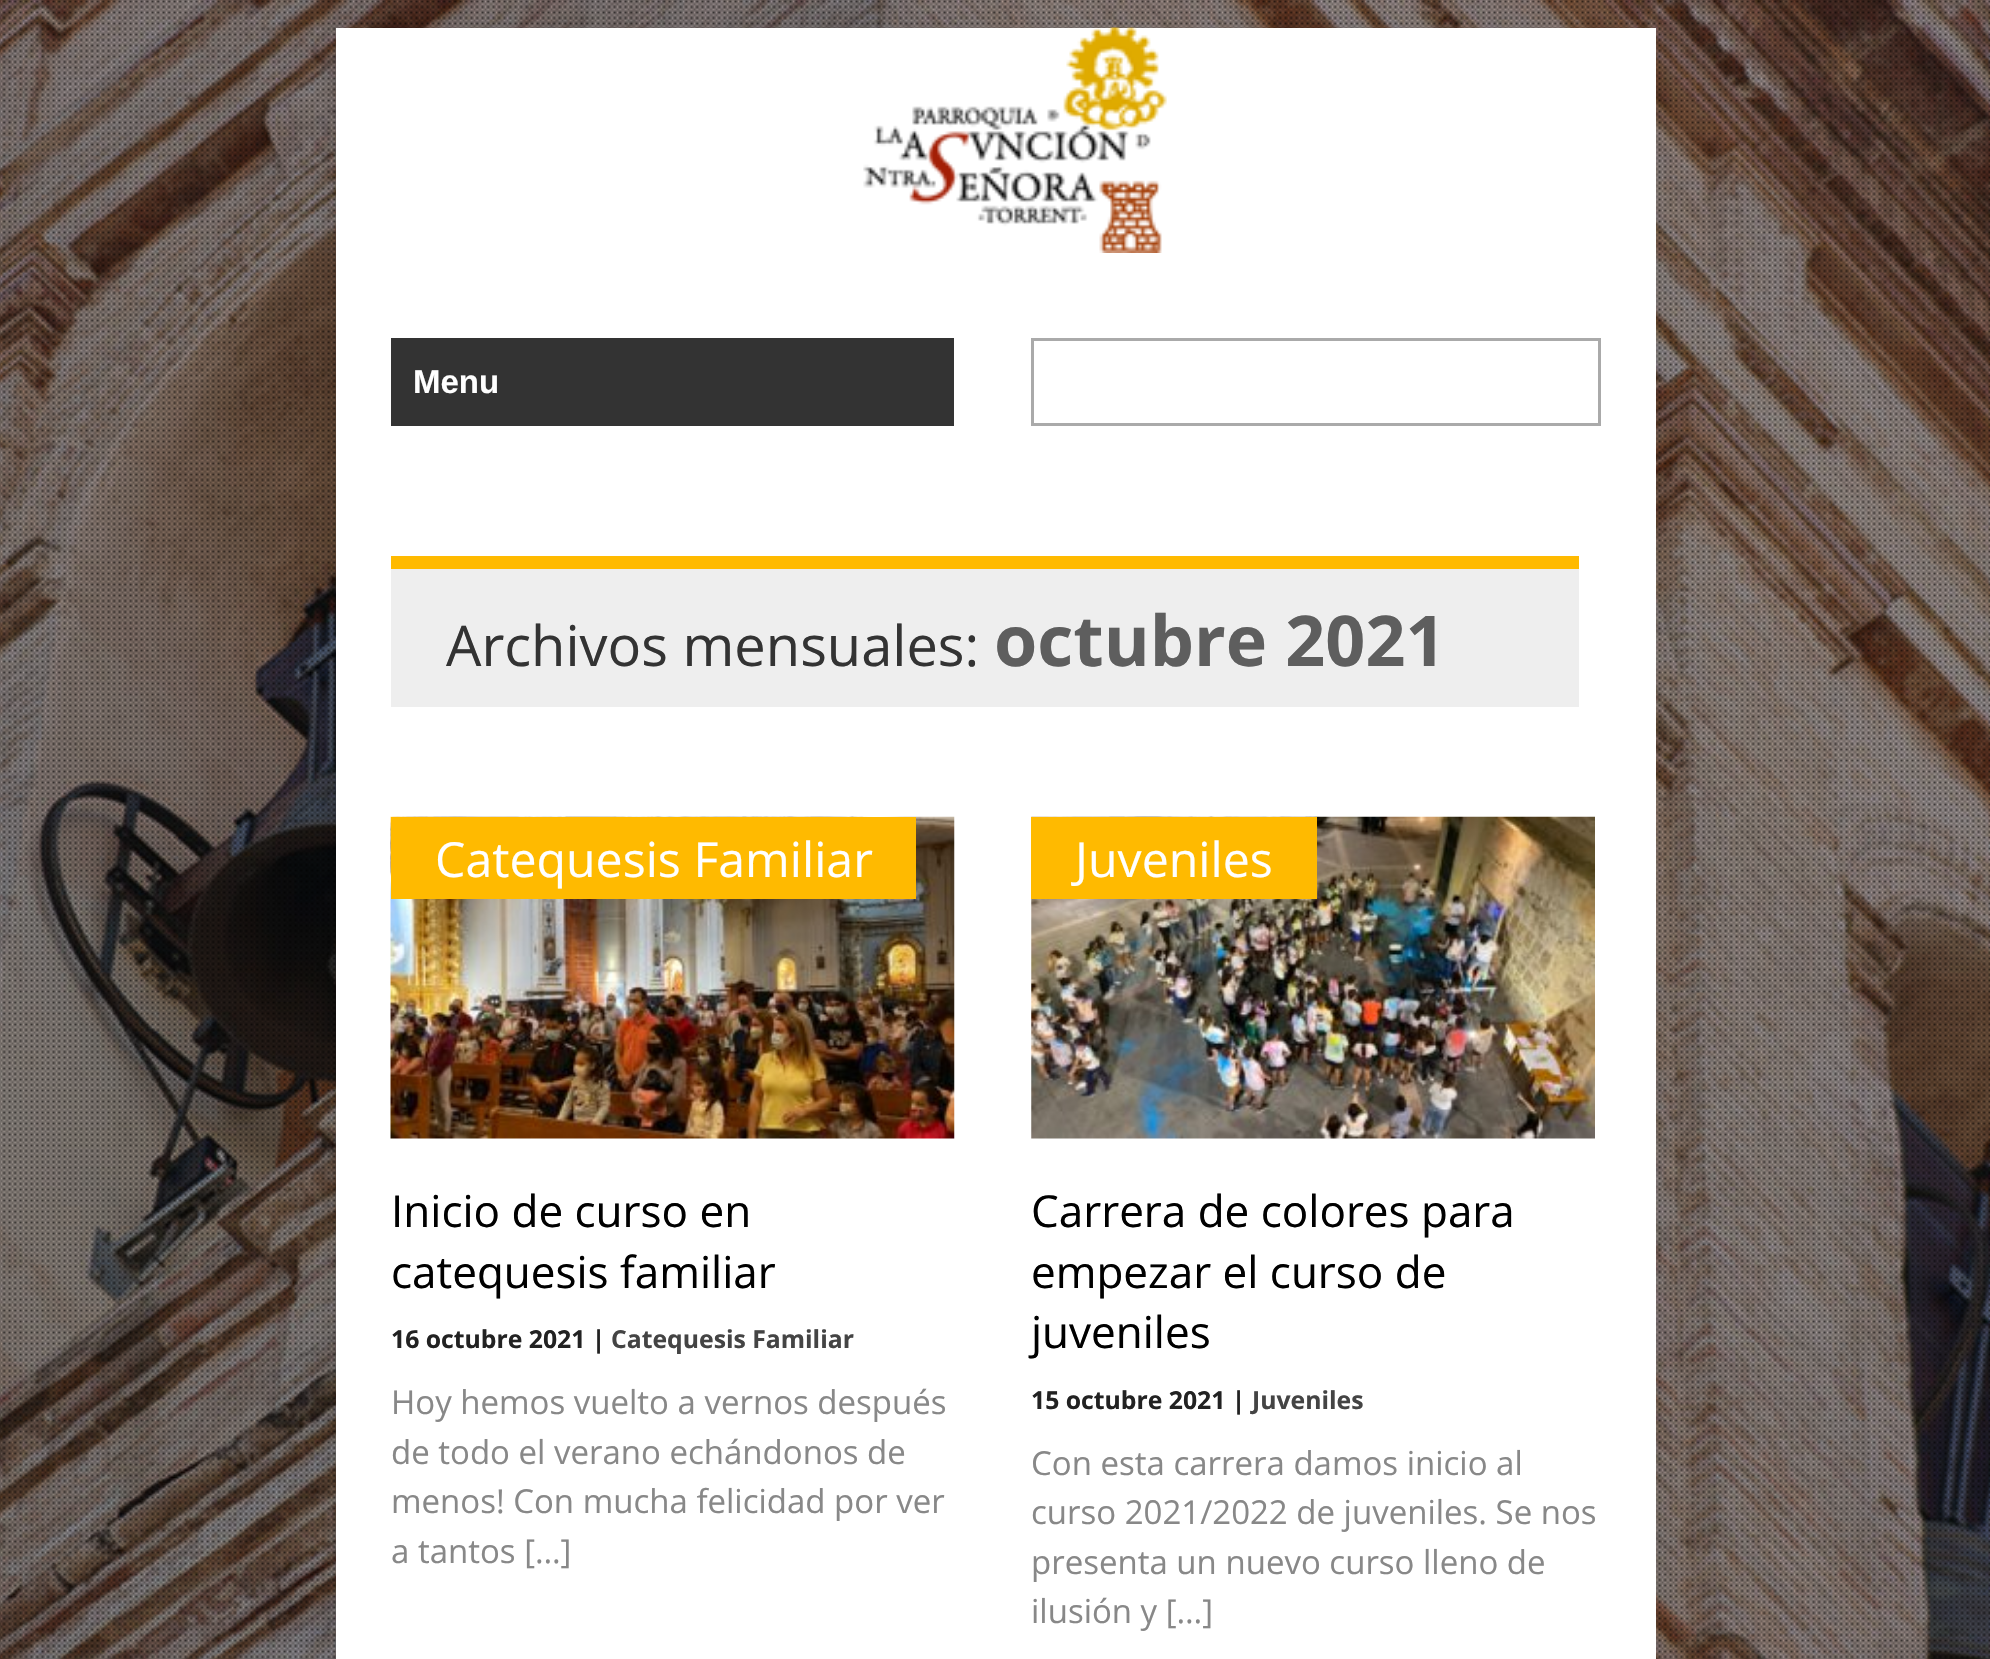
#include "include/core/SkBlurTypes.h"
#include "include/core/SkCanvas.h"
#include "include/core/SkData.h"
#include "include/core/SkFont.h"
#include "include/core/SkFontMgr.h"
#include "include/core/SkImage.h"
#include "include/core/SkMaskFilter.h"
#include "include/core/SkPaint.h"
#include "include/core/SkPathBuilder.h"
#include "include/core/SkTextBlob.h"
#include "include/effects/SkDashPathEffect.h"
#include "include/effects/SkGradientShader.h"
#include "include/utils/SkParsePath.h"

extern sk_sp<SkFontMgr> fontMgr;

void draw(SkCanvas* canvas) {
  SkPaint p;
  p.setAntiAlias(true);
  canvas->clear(SK_ColorBLACK);
  canvas->drawImageRect(SkImages::DeferredFromEncodedData(SkData::MakeFromFileName("images/1.png")), SkRect::MakeLTRB(0, 0, 1990, 1659), SkSamplingOptions());
  canvas->drawImageRect(SkImages::DeferredFromEncodedData(SkData::MakeFromFileName("images/2.png")), SkRect::MakeLTRB(0, 0, 1990, 1659), SkSamplingOptions());
  p.setColor(SkColorSetARGB(26, 0, 0, 0));
  p.setMaskFilter(SkMaskFilter::MakeBlur(kNormal_SkBlurStyle, 14));
  canvas->drawRect(SkRect::MakeLTRB(336, 28, 1656, 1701), p);
  p.setMaskFilter(nullptr);
  p.setColor(SK_ColorWHITE);
  canvas->drawRect(SkRect::MakeLTRB(336, 28, 1656, 1659), p);
  canvas->drawImageRect(SkImages::DeferredFromEncodedData(SkData::MakeFromFileName("images/3.png")), SkRect::MakeLTRB(863, 27, 1167, 253), SkSamplingOptions());
  p.setColor(SkColorSetRGB(51, 51, 51));
  canvas->drawRect(SkRect::MakeLTRB(391, 338, 954, 426), p);
  p.setStyle(SkPaint::kStroke_Style);
  p.setStrokeWidth(3);
  p.setColor(SkColorSetRGB(170, 170, 170));
  canvas->drawRect(SkRect::MakeLTRB(1032.5f, 339.5f, 1599.5f, 424.5f), p);
  p.setStyle(SkPaint::kFill_Style);
  p.setColor(SkColorSetRGB(238, 238, 238));
  canvas->drawRect(SkRect::MakeLTRB(391, 569, 1579, 707), p);
  p.setColor(SkColorSetRGB(255, 186, 0));
  canvas->drawRect(SkRect::MakeLTRB(391, 556, 1579, 569), p);
  canvas->drawImageRect(SkImages::DeferredFromEncodedData(SkData::MakeFromFileName("images/4.png")), SkRect::MakeLTRB(390, 816, 955, 1139), SkSamplingOptions());
  canvas->drawRect(SkRect::MakeLTRB(391, 817, 916, 899), p);
  canvas->drawImageRect(SkImages::DeferredFromEncodedData(SkData::MakeFromFileName("images/5.png")), SkRect::MakeLTRB(1031, 816, 1595, 1139), SkSamplingOptions());
  canvas->drawRect(SkRect::MakeLTRB(1031, 817, 1317, 899), p);
  SkFont font1(fontMgr->matchFamilyStyle("Liberation Sans", SkFontStyle::Bold()), 33);
  font1.setSubpixel(true);
  p.setColor(SK_ColorWHITE);
  canvas->drawString("Menu", 413, 393, font1, p);
  SkFont font2(fontMgr->matchFamilyStyle("Open Sans", SkFontStyle::Normal()), 56);
  font2.setSubpixel(true);
  p.setColor(SkColorSetRGB(51, 51, 51));
  canvas->drawString("Archivos mensuales:", 446, 666, font2, p);
  SkFont font3(fontMgr->matchFamilyStyle("Open Sans", SkFontStyle::Bold()), 70);
  font3.setSubpixel(true);
  p.setColor(SkColorSetRGB(94, 94, 94));
  canvas->drawString("octubre 2021", 994, 666, font3, p);
  SkFont font4(fontMgr->matchFamilyStyle("Open Sans", SkFontStyle::Normal()), 48.25f);
  font4.setSubpixel(true);
  p.setColor(SK_ColorWHITE);
  canvas->drawString("Catequesis Familiar", 435, 877, font4, p);
  SkFont font5(fontMgr->matchFamilyStyle("Open Sans", SkFontStyle::Normal()), 44);
  font5.setSubpixel(true);
  p.setColor(SK_ColorBLACK);
  canvas->drawString("Inicio de curso en", 391, 1227, font5, p);
  canvas->drawString("catequesis familiar", 391, 1288, font5, p);
  SkFont font6(fontMgr->matchFamilyStyle("Open Sans", SkFontStyle::Bold()), 24.75f);
  font6.setSubpixel(true);
  p.setColor(SkColorSetRGB(34, 34, 34));
  canvas->drawString("16 octubre 2021 |", 391, 1348, font6, p);
  p.setColor(SkColorSetRGB(68, 68, 68));
  canvas->drawString("Catequesis Familiar", 611, 1348, font6, p);
  SkFont font7(fontMgr->matchFamilyStyle("Open Sans", SkFontStyle::Normal()), 33);
  font7.setSubpixel(true);
  p.setColor(SkColorSetRGB(136, 136, 136));
  canvas->drawString("Hoy hemos vuelto a vernos después", 391, 1414, font7, p);
  canvas->drawString("de todo el verano echándonos de", 391, 1464, font7, p);
  canvas->drawString("menos! Con mucha felicidad por ver", 391, 1513, font7, p);
  canvas->drawString("a tantos […]", 391, 1563, font7, p);
  p.setColor(SK_ColorWHITE);
  canvas->drawString("Juveniles", 1075, 877, font4, p);
  p.setColor(SK_ColorBLACK);
  canvas->drawString("Carrera de colores para", 1031, 1227, font5, p);
  canvas->drawString("empezar el curso de", 1031, 1288, font5, p);
  canvas->drawString("juveniles", 1031, 1348, font5, p);
  p.setColor(SkColorSetRGB(34, 34, 34));
  canvas->drawString("15 octubre 2021 |", 1031, 1409, font6, p);
  p.setColor(SkColorSetRGB(68, 68, 68));
  canvas->drawString("Juveniles", 1252, 1409, font6, p);
  p.setColor(SkColorSetRGB(136, 136, 136));
  canvas->drawString("Con esta carrera damos inicio al", 1031, 1475, font7, p);
  canvas->drawString("curso 2021/2022 de juveniles. Se nos", 1031, 1524, font7, p);
  canvas->drawString("presenta un nuevo curso lleno de", 1031, 1574, font7, p);
  canvas->drawString("ilusión y […]", 1031, 1623, font7, p);
}
